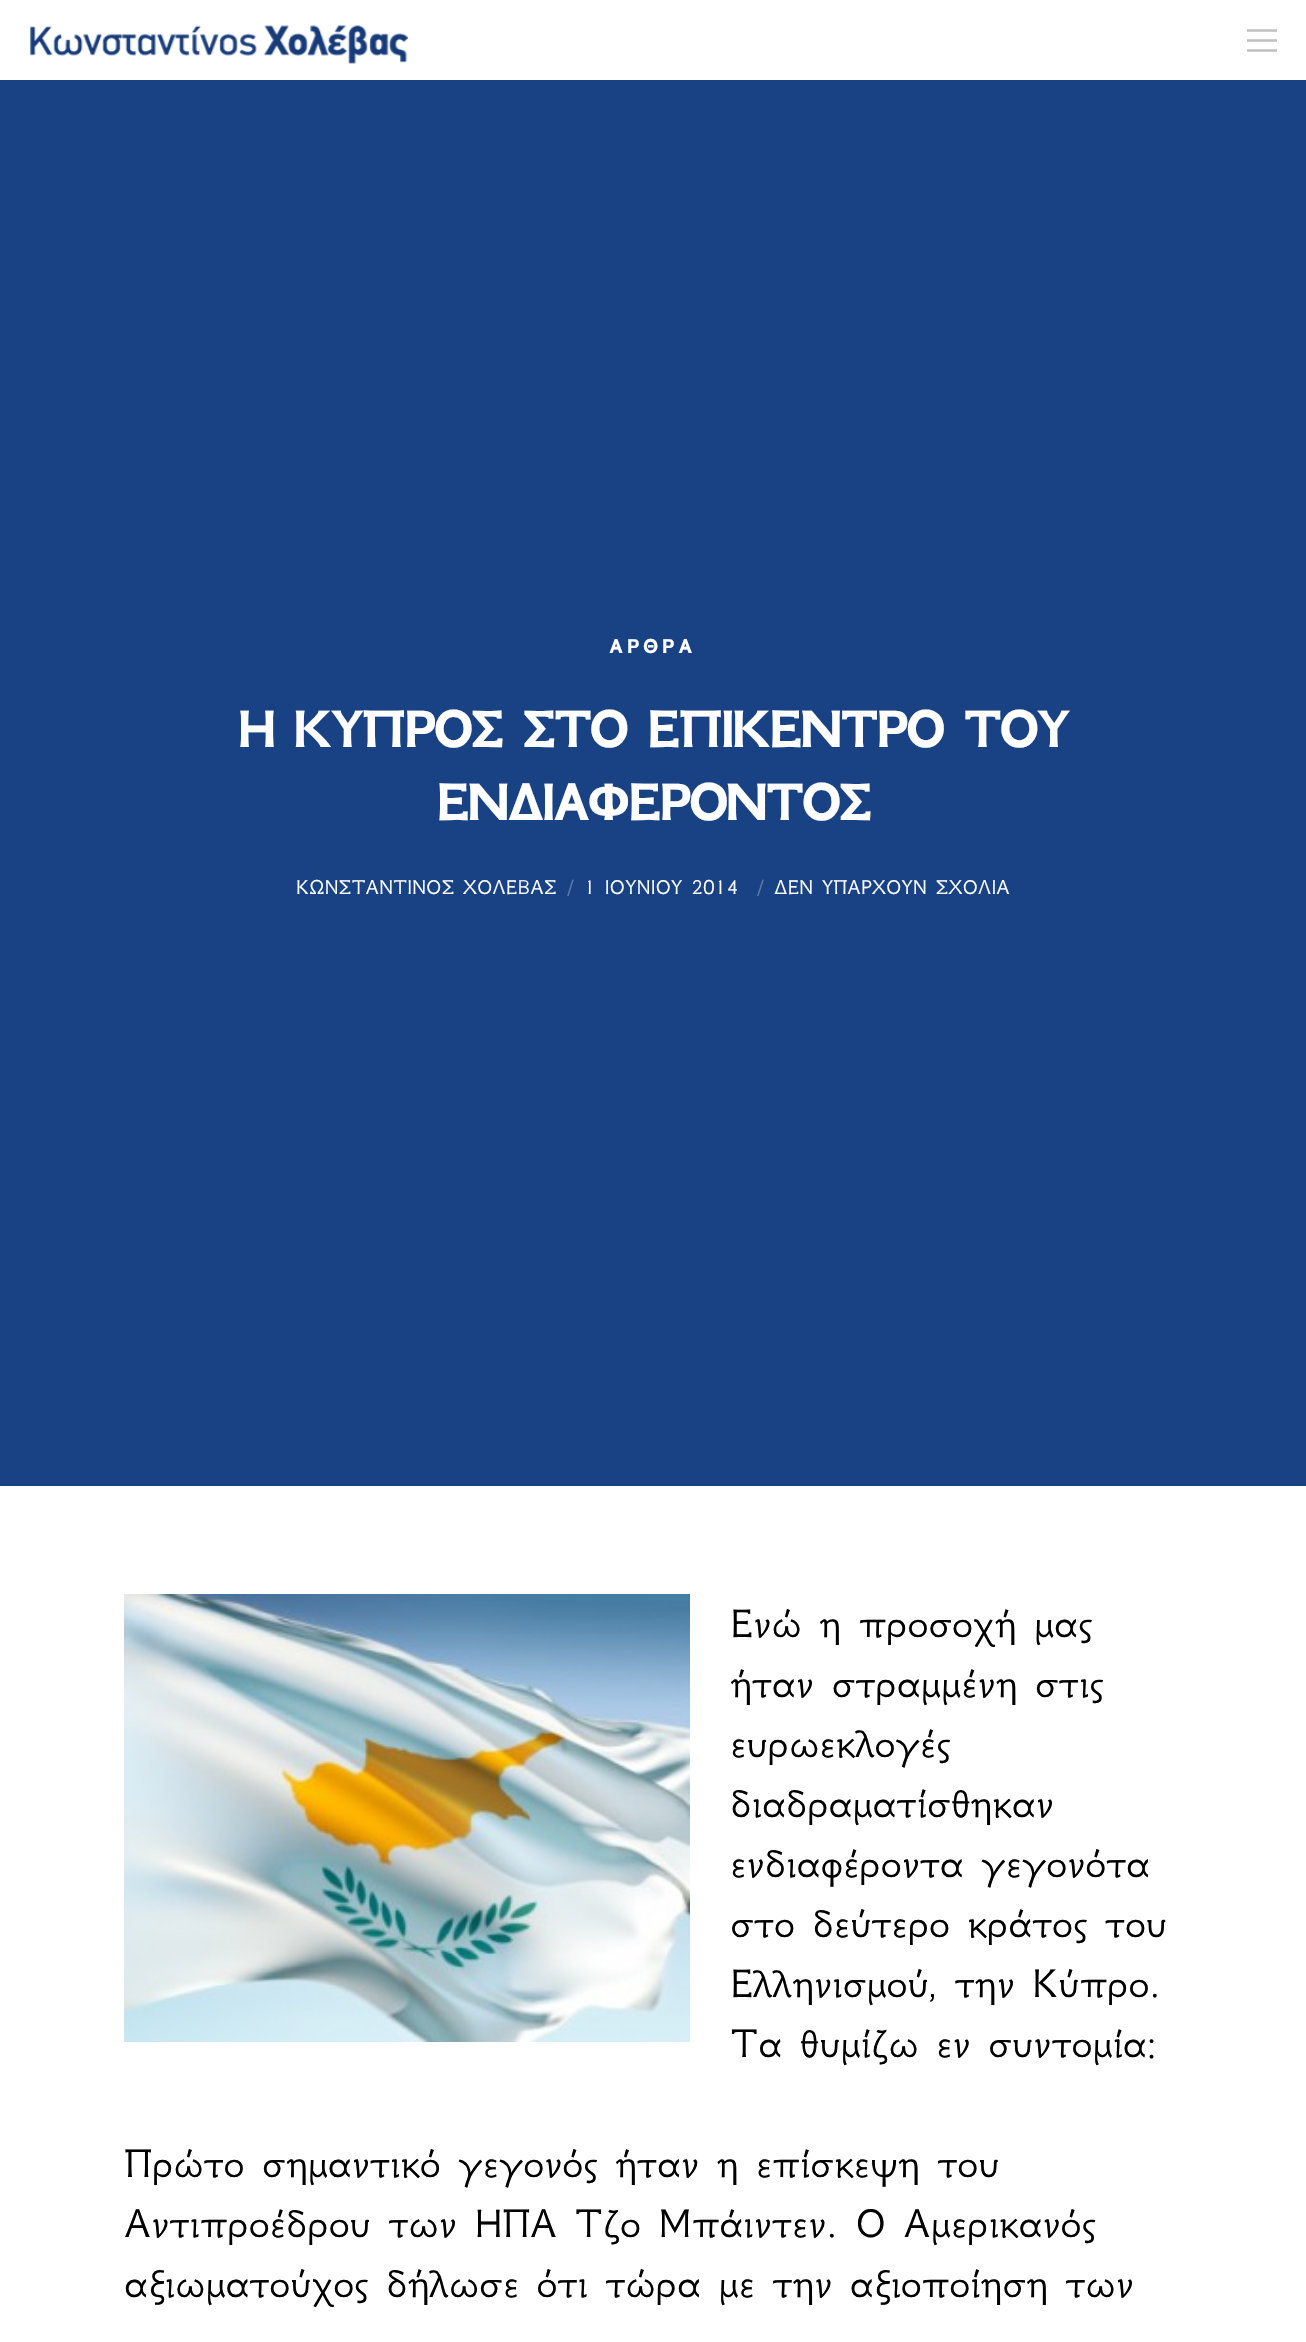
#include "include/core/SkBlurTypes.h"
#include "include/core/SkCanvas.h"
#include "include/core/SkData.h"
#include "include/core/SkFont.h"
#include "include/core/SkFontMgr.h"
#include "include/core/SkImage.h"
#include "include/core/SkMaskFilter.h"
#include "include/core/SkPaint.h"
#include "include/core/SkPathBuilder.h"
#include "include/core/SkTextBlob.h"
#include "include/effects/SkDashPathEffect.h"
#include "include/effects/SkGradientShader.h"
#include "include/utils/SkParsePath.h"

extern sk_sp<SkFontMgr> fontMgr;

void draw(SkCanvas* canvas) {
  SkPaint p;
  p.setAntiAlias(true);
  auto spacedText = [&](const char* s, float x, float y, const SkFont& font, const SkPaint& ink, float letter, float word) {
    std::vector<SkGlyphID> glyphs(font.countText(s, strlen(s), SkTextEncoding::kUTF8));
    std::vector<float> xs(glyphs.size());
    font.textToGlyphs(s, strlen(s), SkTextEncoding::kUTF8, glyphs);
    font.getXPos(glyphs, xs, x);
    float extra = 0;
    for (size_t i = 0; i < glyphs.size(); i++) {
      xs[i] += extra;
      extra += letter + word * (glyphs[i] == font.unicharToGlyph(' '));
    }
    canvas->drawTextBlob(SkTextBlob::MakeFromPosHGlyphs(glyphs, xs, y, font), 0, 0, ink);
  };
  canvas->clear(SkColorSetRGB(24, 66, 132));
  p.setColor(SK_ColorWHITE);
  canvas->drawRect(SkRect::MakeLTRB(0, 0, 1306, 80), p);
  canvas->drawImageRect(SkImages::DeferredFromEncodedData(SkData::MakeFromFileName("images/1.png")), SkRect::MakeLTRB(30, 25, 408, 64), SkSamplingOptions());
  canvas->drawImageRect(SkImages::DeferredFromEncodedData(SkData::MakeFromFileName("images/2.png")), SkRect::MakeLTRB(1247, 29, 1277, 52), SkSamplingOptions());
  canvas->drawRect(SkRect::MakeLTRB(0, 1486, 1306, 2342), p);
  canvas->drawImageRect(SkImages::DeferredFromEncodedData(SkData::MakeFromFileName("images/3.png")), SkRect::MakeLTRB(124, 1594, 690, 2042), SkSamplingOptions());
  SkFont font1(fontMgr->matchFamilyStyle("GFS Neohellenic", SkFontStyle::Bold()), 22);
  font1.setSubpixel(true);
  spacedText("ΑΡΘΡΑ", 609, 653, font1, p, 4, 0);
  SkFont font2(fontMgr->matchFamilyStyle("GFS Neohellenic", SkFontStyle::Bold()), 58);
  font2.setSubpixel(true);
  spacedText("Η ΚΥΠΡΟΣ ΣΤΟ ΕΠΙΚΕΝΤΡΟ ΤΟΥ", 238, 747, font2, p, -2.6f, 0);
  spacedText("ΕΝΔΙΑΦΕΡΟΝΤΟΣ", 436, 820, font2, p, -2.6f, 0);
  SkFont font3(fontMgr->matchFamilyStyle("GFS Neohellenic", SkFontStyle::Normal()), 22);
  font3.setSubpixel(true);
  canvas->drawString("KΩΝΣΤΑΝΤΙΝΟΣ ΧΟΛΕΒΑΣ", 296, 894, font3, p);
  p.setColor(SkColorSetRGB(93, 123, 169));
  canvas->drawString("/", 567, 894, font3, p);
  p.setColor(SK_ColorWHITE);
  canvas->drawString("1 ΙΟΥΝΙΟΥ 2014", 584, 894, font3, p);
  p.setColor(SkColorSetRGB(93, 123, 169));
  canvas->drawString("/", 757, 894, font3, p);
  p.setColor(SK_ColorWHITE);
  canvas->drawString("ΔΕΝ ΥΠΑΡΧΟΥΝ ΣΧΟΛΙΑ", 774, 894, font3, p);
  SkFont font4(fontMgr->matchFamilyStyle("GFS Neohellenic", SkFontStyle::Normal()), 44);
  font4.setSubpixel(true);
  p.setColor(SK_ColorBLACK);
  canvas->drawString("Ενώ η προσοχή μας", 730, 1637, font4, p);
  canvas->drawString("ήταν στραμμένη στις", 730, 1697, font4, p);
  canvas->drawString("ευρωεκλογές", 730, 1757, font4, p);
  canvas->drawString("διαδραματίσθηκαν", 730, 1817, font4, p);
  canvas->drawString("ενδιαφέροντα γεγονότα", 730, 1877, font4, p);
  canvas->drawString("στο δεύτερο κράτος του", 730, 1937, font4, p);
  canvas->drawString("Ελληνισμού, την Κύπρο.", 730, 1997, font4, p);
  canvas->drawString("Τα θυμίζω εν συντομία:", 730, 2057, font4, p);
  canvas->drawString("Πρώτο σημαντικό γεγονός ήταν η επίσκεψη του", 124, 2177, font4, p);
  canvas->drawString("Αντιπροέδρου των ΗΠΑ Τζο Μπάιντεν. Ο Αμερικανός", 124, 2237, font4, p);
  canvas->drawString("αξιωματούχος δήλωσε ότι τώρα με την αξιοποίηση των", 124, 2297, font4, p);
}
